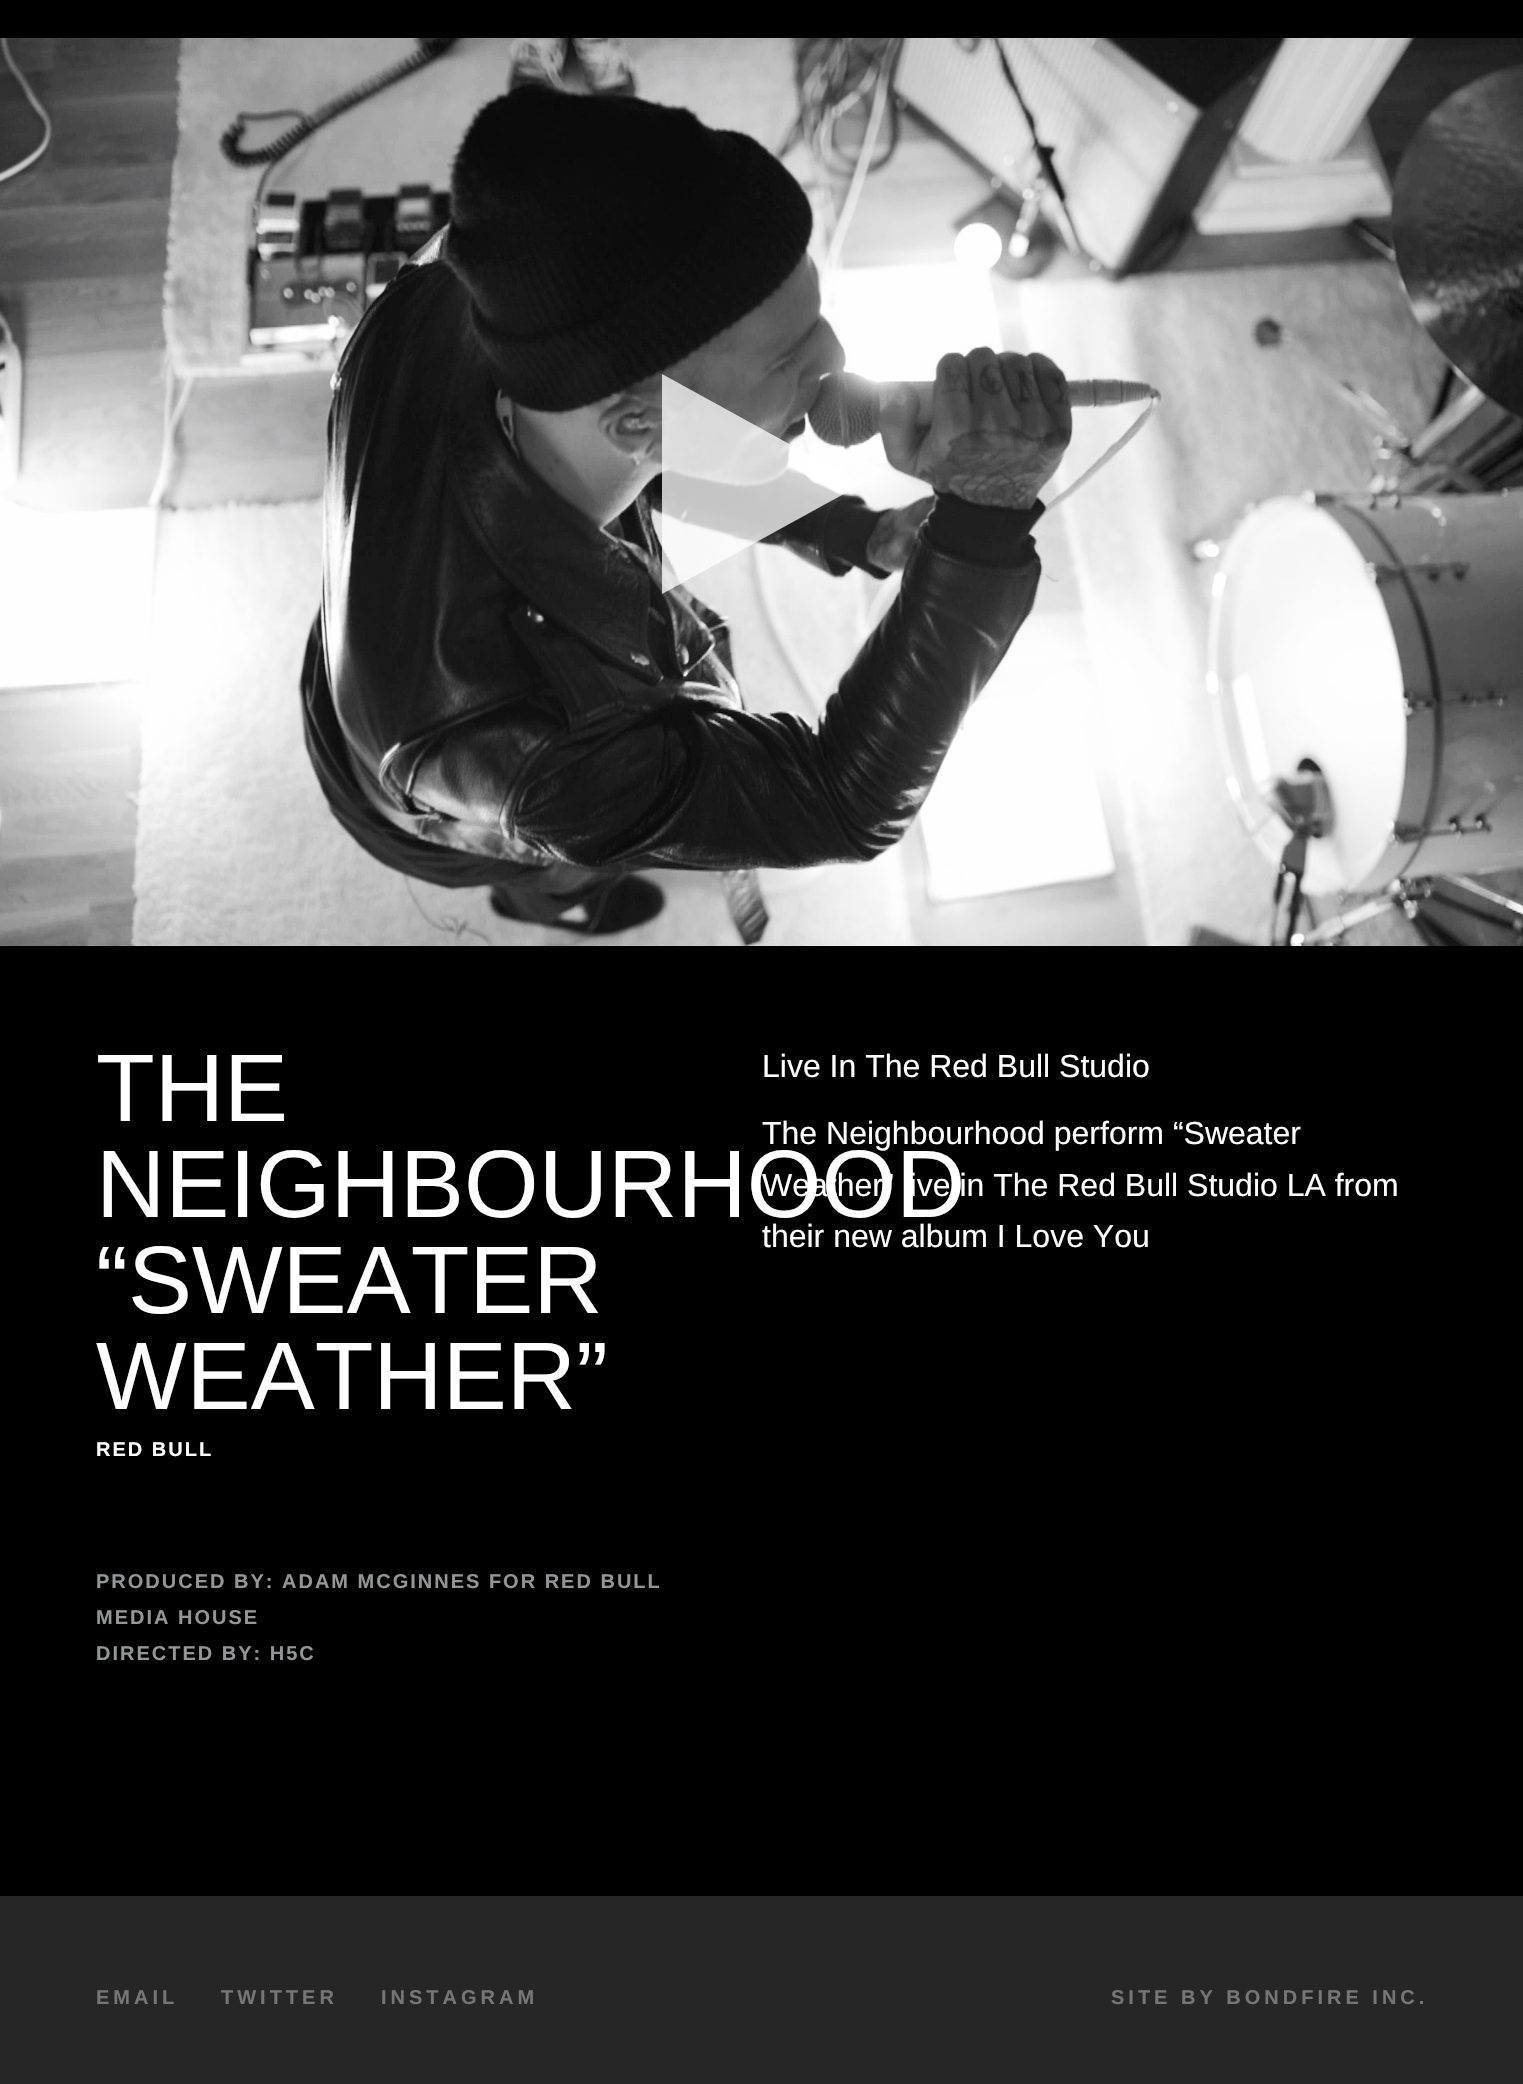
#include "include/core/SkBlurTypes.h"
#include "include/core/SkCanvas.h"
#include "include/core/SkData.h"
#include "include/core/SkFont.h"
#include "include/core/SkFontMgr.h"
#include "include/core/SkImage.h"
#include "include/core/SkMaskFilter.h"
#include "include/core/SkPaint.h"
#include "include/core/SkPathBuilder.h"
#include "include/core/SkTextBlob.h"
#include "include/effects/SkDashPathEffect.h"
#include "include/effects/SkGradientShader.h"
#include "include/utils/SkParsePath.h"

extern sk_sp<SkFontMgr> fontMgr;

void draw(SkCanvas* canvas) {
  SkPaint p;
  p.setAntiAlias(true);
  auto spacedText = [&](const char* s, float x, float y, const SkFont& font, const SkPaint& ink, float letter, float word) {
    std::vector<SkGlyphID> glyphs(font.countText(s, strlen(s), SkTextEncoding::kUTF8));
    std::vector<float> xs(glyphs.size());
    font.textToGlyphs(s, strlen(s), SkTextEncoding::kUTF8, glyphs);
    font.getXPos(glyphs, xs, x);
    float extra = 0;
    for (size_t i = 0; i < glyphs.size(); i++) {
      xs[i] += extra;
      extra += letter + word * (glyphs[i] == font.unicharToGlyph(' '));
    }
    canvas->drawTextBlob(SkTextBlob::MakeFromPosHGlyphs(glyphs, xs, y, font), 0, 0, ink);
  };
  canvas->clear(SK_ColorBLACK);
  canvas->drawImageRect(SkImages::DeferredFromEncodedData(SkData::MakeFromFileName("images/1.png")), SkRect::MakeLTRB(0, 38, 1523, 946), SkSamplingOptions());
  p.setColor(SkColorSetARGB(191, 255, 255, 255));
  canvas->drawPath(SkPathBuilder().moveTo(662, 594).lineTo(662, 374).lineTo(862, 484).close().detach(), p);
  p.setColor(SkColorSetRGB(38, 38, 38));
  canvas->drawRect(SkRect::MakeLTRB(0, 1896, 1523, 2084), p);
  SkFont font1(fontMgr->matchFamilyStyle("Liberation Sans", SkFontStyle::Normal()), 96);
  font1.setSubpixel(true);
  p.setColor(SK_ColorWHITE);
  canvas->drawString("THE", 96, 1121, font1, p);
  canvas->drawString("NEIGHBOURHOOD", 96, 1217, font1, p);
  canvas->drawString("“SWEATER", 96, 1313, font1, p);
  canvas->drawString("WEATHER”", 96, 1409, font1, p);
  SkFont font2(fontMgr->matchFamilyStyle("Liberation Sans", SkFontStyle::Bold()), 20);
  font2.setSubpixel(true);
  spacedText("RED BULL", 96, 1456, font2, p, 2, 0);
  p.setColor(SkColorSetRGB(147, 149, 151));
  spacedText("PRODUCED BY: ADAM MCGINNES FOR RED BULL", 96, 1588, font2, p, 2, 0);
  spacedText("MEDIA HOUSE", 96, 1624, font2, p, 2, 0);
  spacedText("DIRECTED BY: H5C", 96, 1660, font2, p, 2, 0);
  SkFont font3(fontMgr->matchFamilyStyle("Liberation Sans", SkFontStyle::Normal()), 32);
  font3.setSubpixel(true);
  p.setColor(SK_ColorWHITE);
  canvas->drawString("Live In The Red Bull Studio", 762, 1077, font3, p);
  canvas->drawString("The Neighbourhood perform “Sweater", 762, 1144, font3, p);
  canvas->drawString("Weather” live in The Red Bull Studio LA from", 762, 1196, font3, p);
  canvas->drawString("their new album I Love You", 762, 1247, font3, p);
  p.setColor(SkColorSetRGB(118, 118, 118));
  spacedText("EMAIL", 96, 2004, font2, p, 4, 0);
  spacedText("TWITTER", 221, 2004, font2, p, 4, 0);
  spacedText("INSTAGRAM", 381, 2004, font2, p, 4, 0);
  spacedText("SITE BY BONDFIRE INC.", 1111, 2004, font2, p, 4, 0);
}
